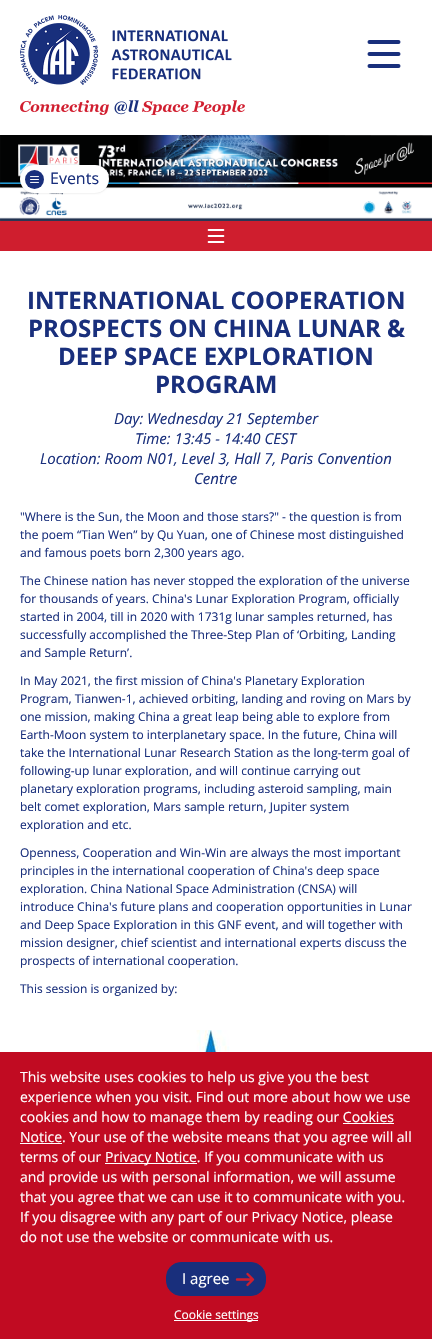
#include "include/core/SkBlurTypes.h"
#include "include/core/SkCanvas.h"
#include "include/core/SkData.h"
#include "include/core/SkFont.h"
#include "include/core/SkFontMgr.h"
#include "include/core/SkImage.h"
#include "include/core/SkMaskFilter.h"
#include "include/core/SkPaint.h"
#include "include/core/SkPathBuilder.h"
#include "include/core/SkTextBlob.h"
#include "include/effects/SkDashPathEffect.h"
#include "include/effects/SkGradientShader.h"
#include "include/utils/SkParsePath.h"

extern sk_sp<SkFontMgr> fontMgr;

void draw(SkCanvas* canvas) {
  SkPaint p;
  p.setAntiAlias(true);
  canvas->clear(SK_ColorWHITE);
  canvas->drawImageRect(SkImages::DeferredFromEncodedData(SkData::MakeFromFileName("images/1.png")), SkRect::MakeLTRB(20, 15, 232, 85), SkSamplingOptions());
  p.setStyle(SkPaint::kStroke_Style);
  p.setStrokeWidth(4);
  p.setStrokeCap(SkPaint::kRound_Cap);
  p.setColor(SkColorSetRGB(25, 47, 124));
  canvas->drawPath(SkPathBuilder().moveTo(369.5f, 42).lineTo(398.5f, 42).moveTo(369.5f, 54).lineTo(398.5f, 54).moveTo(369.5f, 66).lineTo(398.5f, 66).detach(), p);
  canvas->drawImageRect(SkImages::DeferredFromEncodedData(SkData::MakeFromFileName("images/2.png")), SkRect::MakeLTRB(20, 100, 245, 115), SkSamplingOptions());
  canvas->drawImageRect(SkImages::DeferredFromEncodedData(SkData::MakeFromFileName("images/3.png")), SkRect::MakeLTRB(0, 135, 432, 221), SkSamplingOptions());
  p.setStyle(SkPaint::kFill_Style);
  p.setColor(SkColorSetARGB(41, 0, 0, 0));
  p.setMaskFilter(SkMaskFilter::MakeBlur(kNormal_SkBlurStyle, 1));
  canvas->drawRoundRect(SkRect::MakeLTRB(20, 165, 109, 193), 14, 14, p);
  p.setMaskFilter(nullptr);
  p.setColor(SK_ColorWHITE);
  canvas->drawRoundRect(SkRect::MakeLTRB(20, 165, 109, 193), 14, 14, p);
  p.setColor(SkColorSetRGB(25, 47, 124));
  canvas->drawCircle(34.5f, 179.5f, 9.5f, p);
  canvas->drawImageRect(SkImages::DeferredFromEncodedData(SkData::MakeFromFileName("images/4.png")), SkRect::MakeLTRB(30, 176, 39, 183), SkSamplingOptions());
  p.setColor(SkColorSetRGB(207, 30, 46));
  canvas->drawRect(SkRect::MakeLTRB(0, 221, 432, 251), p);
  canvas->drawImageRect(SkImages::DeferredFromEncodedData(SkData::MakeFromFileName("images/5.png")), SkRect::MakeLTRB(207, 229, 225, 243), SkSamplingOptions());
  canvas->drawImageRect(SkImages::DeferredFromEncodedData(SkData::MakeFromFileName("images/6.png")), SkRect::MakeLTRB(165, 1030, 257, 1052), SkSamplingOptions());
  p.setColor(SkColorSetRGB(193, 11, 34));
  canvas->drawRect(SkRect::MakeLTRB(0, 1052, 432, 1339), p);
  p.setColor(SK_ColorWHITE);
  canvas->drawRect(SkRect::MakeLTRB(343, 1123, 394, 1124), p);
  canvas->drawRect(SkRect::MakeLTRB(20, 1143, 62, 1144), p);
  canvas->drawRect(SkRect::MakeLTRB(105, 1163, 197, 1164), p);
  p.setColor(SkColorSetRGB(25, 47, 124));
  canvas->drawRoundRect(SkRect::MakeLTRB(166.5f, 1262.5f, 265.5f, 1295.5f), 14.5f, 14.5f, p);
  p.setStyle(SkPaint::kStroke_Style);
  p.setStrokeWidth(1);
  p.setStrokeCap(SkPaint::kButt_Cap);
  canvas->drawRoundRect(SkRect::MakeLTRB(166.5f, 1262.5f, 265.5f, 1295.5f), 14.5f, 14.5f, p);
  p.setStrokeWidth(2.4f);
  p.setStrokeCap(SkPaint::kRound_Cap);
  p.setStrokeJoin(SkPaint::kRound_Join);
  p.setColor(SkColorSetRGB(207, 30, 46));
  canvas->drawPath(SkPathBuilder().moveTo(237, 1279.5f).lineTo(252, 1279.5f).moveTo(247.5f, 1274).lineTo(253, 1279.5f).lineTo(247.5f, 1285).detach(), p);
  p.setStyle(SkPaint::kFill_Style);
  p.setColor(SK_ColorWHITE);
  canvas->drawRect(SkRect::MakeLTRB(174, 1320, 258, 1321), p);
  SkFont font1(fontMgr->matchFamilyStyle("Open Sans", SkFontStyle::Normal()), 16);
  font1.setSubpixel(true);
  p.setColor(SkColorSetRGB(25, 47, 124));
  canvas->drawString("Events", 50, 184, font1, p);
  SkFont font2(fontMgr->matchFamilyStyle("Open Sans", SkFontStyle::Bold()), 24);
  font2.setSubpixel(true);
  canvas->drawString("INTERNATIONAL COOPERATION", 27, 309, font2, p);
  canvas->drawString("PROSPECTS ON CHINA LUNAR &", 28, 337, font2, p);
  canvas->drawString("DEEP SPACE EXPLORATION", 58, 365, font2, p);
  canvas->drawString("PROGRAM", 155, 393, font2, p);
  SkFont font3(fontMgr->matchFamilyStyle("Open Sans", SkFontStyle::Italic()), 15);
  font3.setSubpixel(true);
  canvas->drawString("Day: Wednesday 21 September", 114, 424, font3, p);
  canvas->drawString("Time: 13:45 - 14:40 CEST", 135, 444, font3, p);
  canvas->drawString("Location: Room N01, Level 3, Hall 7, Paris Convention", 40, 464, font3, p);
  canvas->drawString("Centre", 194, 484, font3, p);
  SkFont font4(fontMgr->matchFamilyStyle("Open Sans", SkFontStyle::Normal()), 12);
  font4.setSubpixel(true);
  canvas->drawString("\"Where is the Sun, the Moon and those stars?\" - the question is from", 20, 521, font4, p);
  canvas->drawString("the poem “Tian Wen” by Qu Yuan, one of Chinese most distinguished", 20, 539, font4, p);
  canvas->drawString("and famous poets born 2,300 years ago.", 20, 557, font4, p);
  canvas->drawString("The Chinese nation has never stopped the exploration of the universe", 20, 585, font4, p);
  canvas->drawString("for thousands of years. China's Lunar Exploration Program, officially", 20, 603, font4, p);
  canvas->drawString("started in 2004, till in 2020 with 1731g lunar samples returned, has", 20, 621, font4, p);
  canvas->drawString("successfully accomplished the Three-Step Plan of ‘Orbiting, Landing", 20, 639, font4, p);
  canvas->drawString("and Sample Return’.", 20, 657, font4, p);
  canvas->drawString("In May 2021, the first mission of China's Planetary Exploration", 20, 685, font4, p);
  canvas->drawString("Program, Tianwen-1, achieved orbiting, landing and roving on Mars by", 20, 703, font4, p);
  canvas->drawString("one mission, making China a great leap being able to explore from", 20, 721, font4, p);
  canvas->drawString("Earth-Moon system to interplanetary space. In the future, China will", 20, 739, font4, p);
  canvas->drawString("take the International Lunar Research Station as the long-term goal of", 20, 757, font4, p);
  canvas->drawString("following-up lunar exploration, and will continue carrying out", 20, 775, font4, p);
  canvas->drawString("planetary exploration programs, including asteroid sampling, main", 20, 793, font4, p);
  canvas->drawString("belt comet exploration, Mars sample return, Jupiter system", 20, 811, font4, p);
  canvas->drawString("exploration and etc.", 20, 829, font4, p);
  canvas->drawString("Openness, Cooperation and Win-Win are always the most important", 20, 857, font4, p);
  canvas->drawString("principles in the international cooperation of China's deep space", 20, 875, font4, p);
  canvas->drawString("exploration. China National Space Administration (CNSA) will", 20, 893, font4, p);
  canvas->drawString("introduce China's future plans and cooperation opportunities in Lunar", 20, 911, font4, p);
  canvas->drawString("and Deep Space Exploration in this GNF event, and will together with", 20, 929, font4, p);
  canvas->drawString("mission designer, chief scientist and international experts discuss the", 20, 947, font4, p);
  canvas->drawString("prospects of international cooperation.", 20, 965, font4, p);
  canvas->drawString("This session is organized by:", 20, 993, font4, p);
  SkFont font5(fontMgr->matchFamilyStyle("Open Sans", SkFontStyle::Normal()), 14);
  font5.setSubpixel(true);
  p.setColor(SK_ColorWHITE);
  canvas->drawString("This website uses cookies to help us give you the best", 20, 1082, font5, p);
  canvas->drawString("experience when you visit. Find out more about how we use", 20, 1102, font5, p);
  canvas->drawString("cookies and how to manage them by reading our Cookies", 20, 1122, font5, p);
  canvas->drawString("Notice. Your use of the website means that you agree will all", 20, 1142, font5, p);
  canvas->drawString("terms of our", 20, 1162, font5, p);
  canvas->drawString("Privacy Notice. If you communicate with us", 105, 1162, font5, p);
  canvas->drawString("and provide us with personal information, we will assume", 20, 1182, font5, p);
  canvas->drawString("that you agree that we can use it to communicate with you.", 20, 1202, font5, p);
  canvas->drawString("If you disagree with any part of our Privacy Notice, please", 20, 1222, font5, p);
  canvas->drawString("do not use the website or communicate with us.", 20, 1242, font5, p);
  SkFont font6(fontMgr->matchFamilyStyle("Open Sans", SkFontStyle::Normal()), 15);
  font6.setSubpixel(true);
  canvas->drawString("I agree", 182, 1284, font6, p);
  canvas->drawString("Cookie settings", 174, 1319, font4, p);
}
